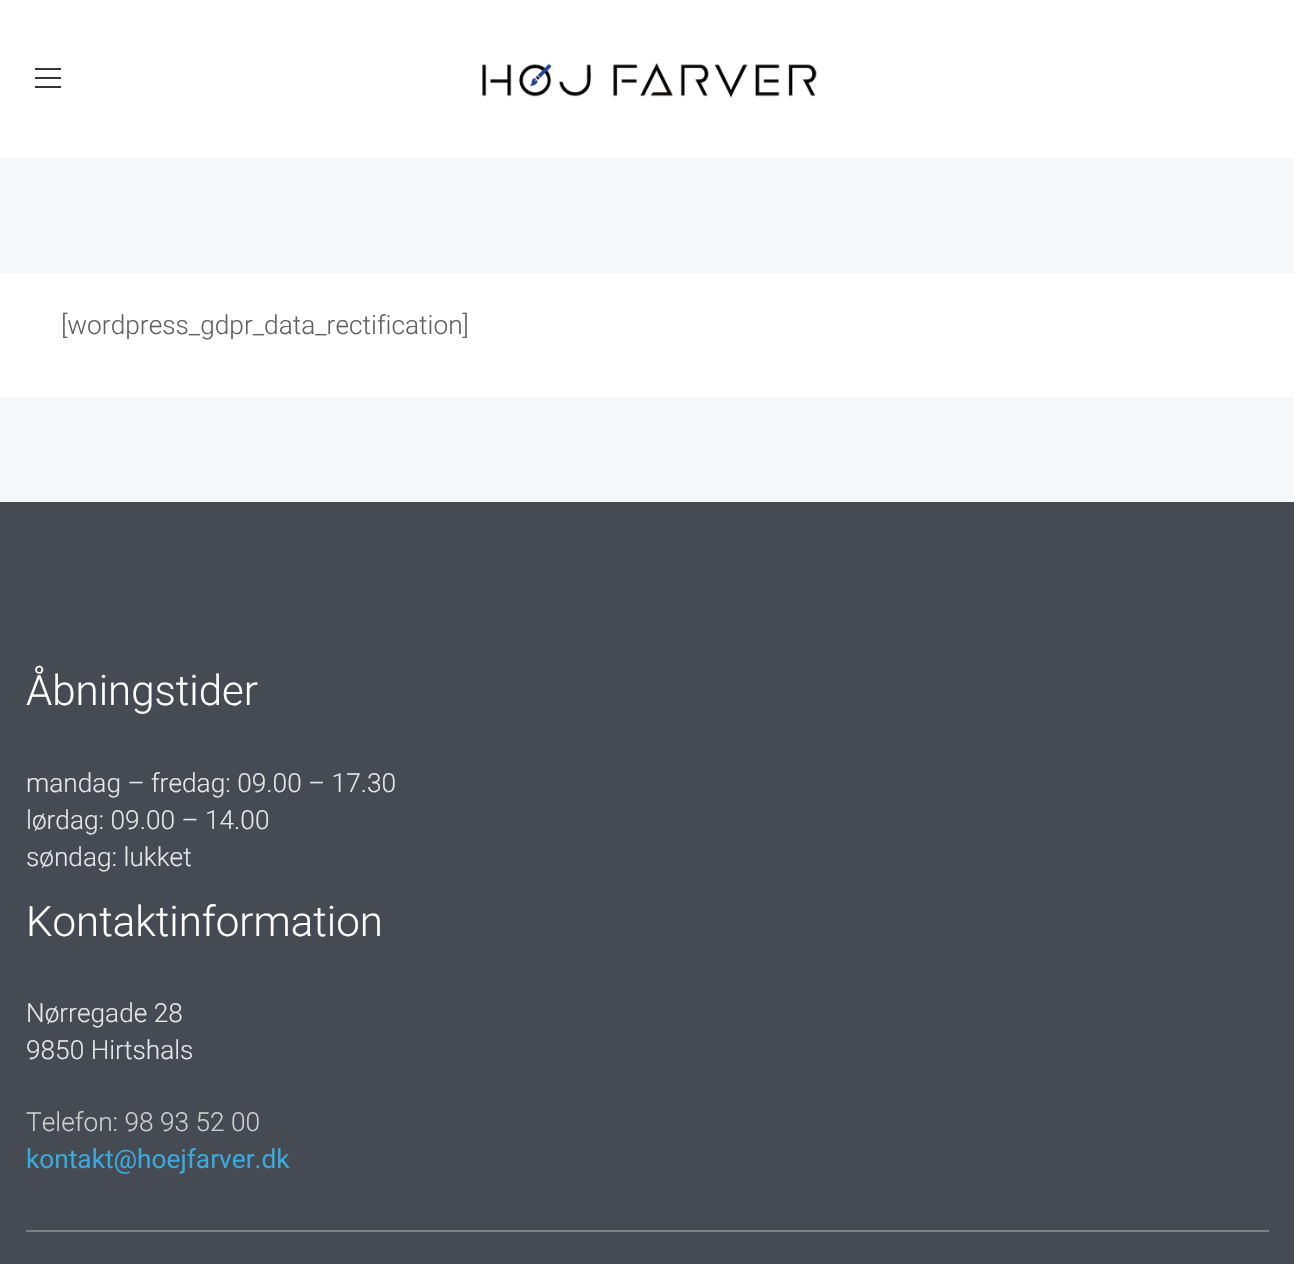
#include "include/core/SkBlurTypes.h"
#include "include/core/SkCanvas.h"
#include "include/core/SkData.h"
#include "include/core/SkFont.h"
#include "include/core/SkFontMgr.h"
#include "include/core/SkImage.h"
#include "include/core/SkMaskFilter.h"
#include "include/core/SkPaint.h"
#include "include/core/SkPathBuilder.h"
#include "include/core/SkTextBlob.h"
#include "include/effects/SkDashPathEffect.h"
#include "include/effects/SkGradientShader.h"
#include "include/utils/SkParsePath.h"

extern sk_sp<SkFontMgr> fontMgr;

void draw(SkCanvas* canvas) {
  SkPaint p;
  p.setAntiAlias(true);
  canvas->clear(SkColorSetRGB(247, 248, 250));
  p.setColor(SK_ColorWHITE);
  canvas->drawRect(SkRect::MakeLTRB(0, 0, 1294, 158), p);
  p.setColor(SkColorSetRGB(52, 52, 60));
  canvas->drawRect(SkRect::MakeLTRB(35, 86, 61, 88), p);
  canvas->drawRect(SkRect::MakeLTRB(35, 68, 61, 70), p);
  canvas->drawRect(SkRect::MakeLTRB(35, 77, 61, 79), p);
  canvas->drawImageRect(SkImages::DeferredFromEncodedData(SkData::MakeFromFileName("images/1.png")), SkRect::MakeLTRB(482, 63, 817, 98), SkSamplingOptions());
  p.setColor(SK_ColorWHITE);
  canvas->drawRect(SkRect::MakeLTRB(0, 273, 1294, 397), p);
  p.setColor(SkColorSetRGB(70, 74, 83));
  canvas->drawRect(SkRect::MakeLTRB(0, 502, 1294, 1264), p);
  p.setColor(SkColorSetRGB(126, 128, 135));
  canvas->drawRect(SkRect::MakeLTRB(26, 1230, 1269, 1232), p);
  SkFont font1(fontMgr->matchFamilyStyle("Roboto", SkFontStyle(300, SkFontStyle::kNormal_Width, SkFontStyle::kUpright_Slant)), 26.25f);
  font1.setSubpixel(true);
  p.setColor(SkColorSetRGB(96, 96, 96));
  canvas->drawString("[wordpress_gdpr_data_rectification]", 61, 334, font1, p);
  SkFont font2(fontMgr->matchFamilyStyle("Roboto", SkFontStyle(300, SkFontStyle::kNormal_Width, SkFontStyle::kUpright_Slant)), 42);
  font2.setSubpixel(true);
  p.setColor(SK_ColorWHITE);
  canvas->drawString("Åbningstider", 26, 705, font2, p);
  p.setColor(SkColorSetRGB(230, 230, 230));
  canvas->drawString("mandag – fredag: 09.00 – 17.30", 26, 792, font1, p);
  canvas->drawString("lørdag: 09.00 – 14.00", 26, 829, font1, p);
  canvas->drawString("søndag: lukket", 26, 866, font1, p);
  p.setColor(SK_ColorWHITE);
  canvas->drawString("Kontaktinformation", 26, 936, font2, p);
  p.setColor(SkColorSetRGB(230, 230, 230));
  canvas->drawString("Nørregade 28", 26, 1022, font1, p);
  canvas->drawString("9850 Hirtshals", 26, 1059, font1, p);
  p.setColor(SkColorSetRGB(207, 207, 207));
  canvas->drawString("Telefon: 98 93 52 00", 26, 1131, font1, p);
  SkFont font3(fontMgr->matchFamilyStyle("Roboto", SkFontStyle::Normal()), 26.25f);
  font3.setSubpixel(true);
  p.setColor(SkColorSetRGB(58, 169, 219));
  canvas->drawString("kontakt@hoejfarver.dk", 26, 1168, font3, p);
}
